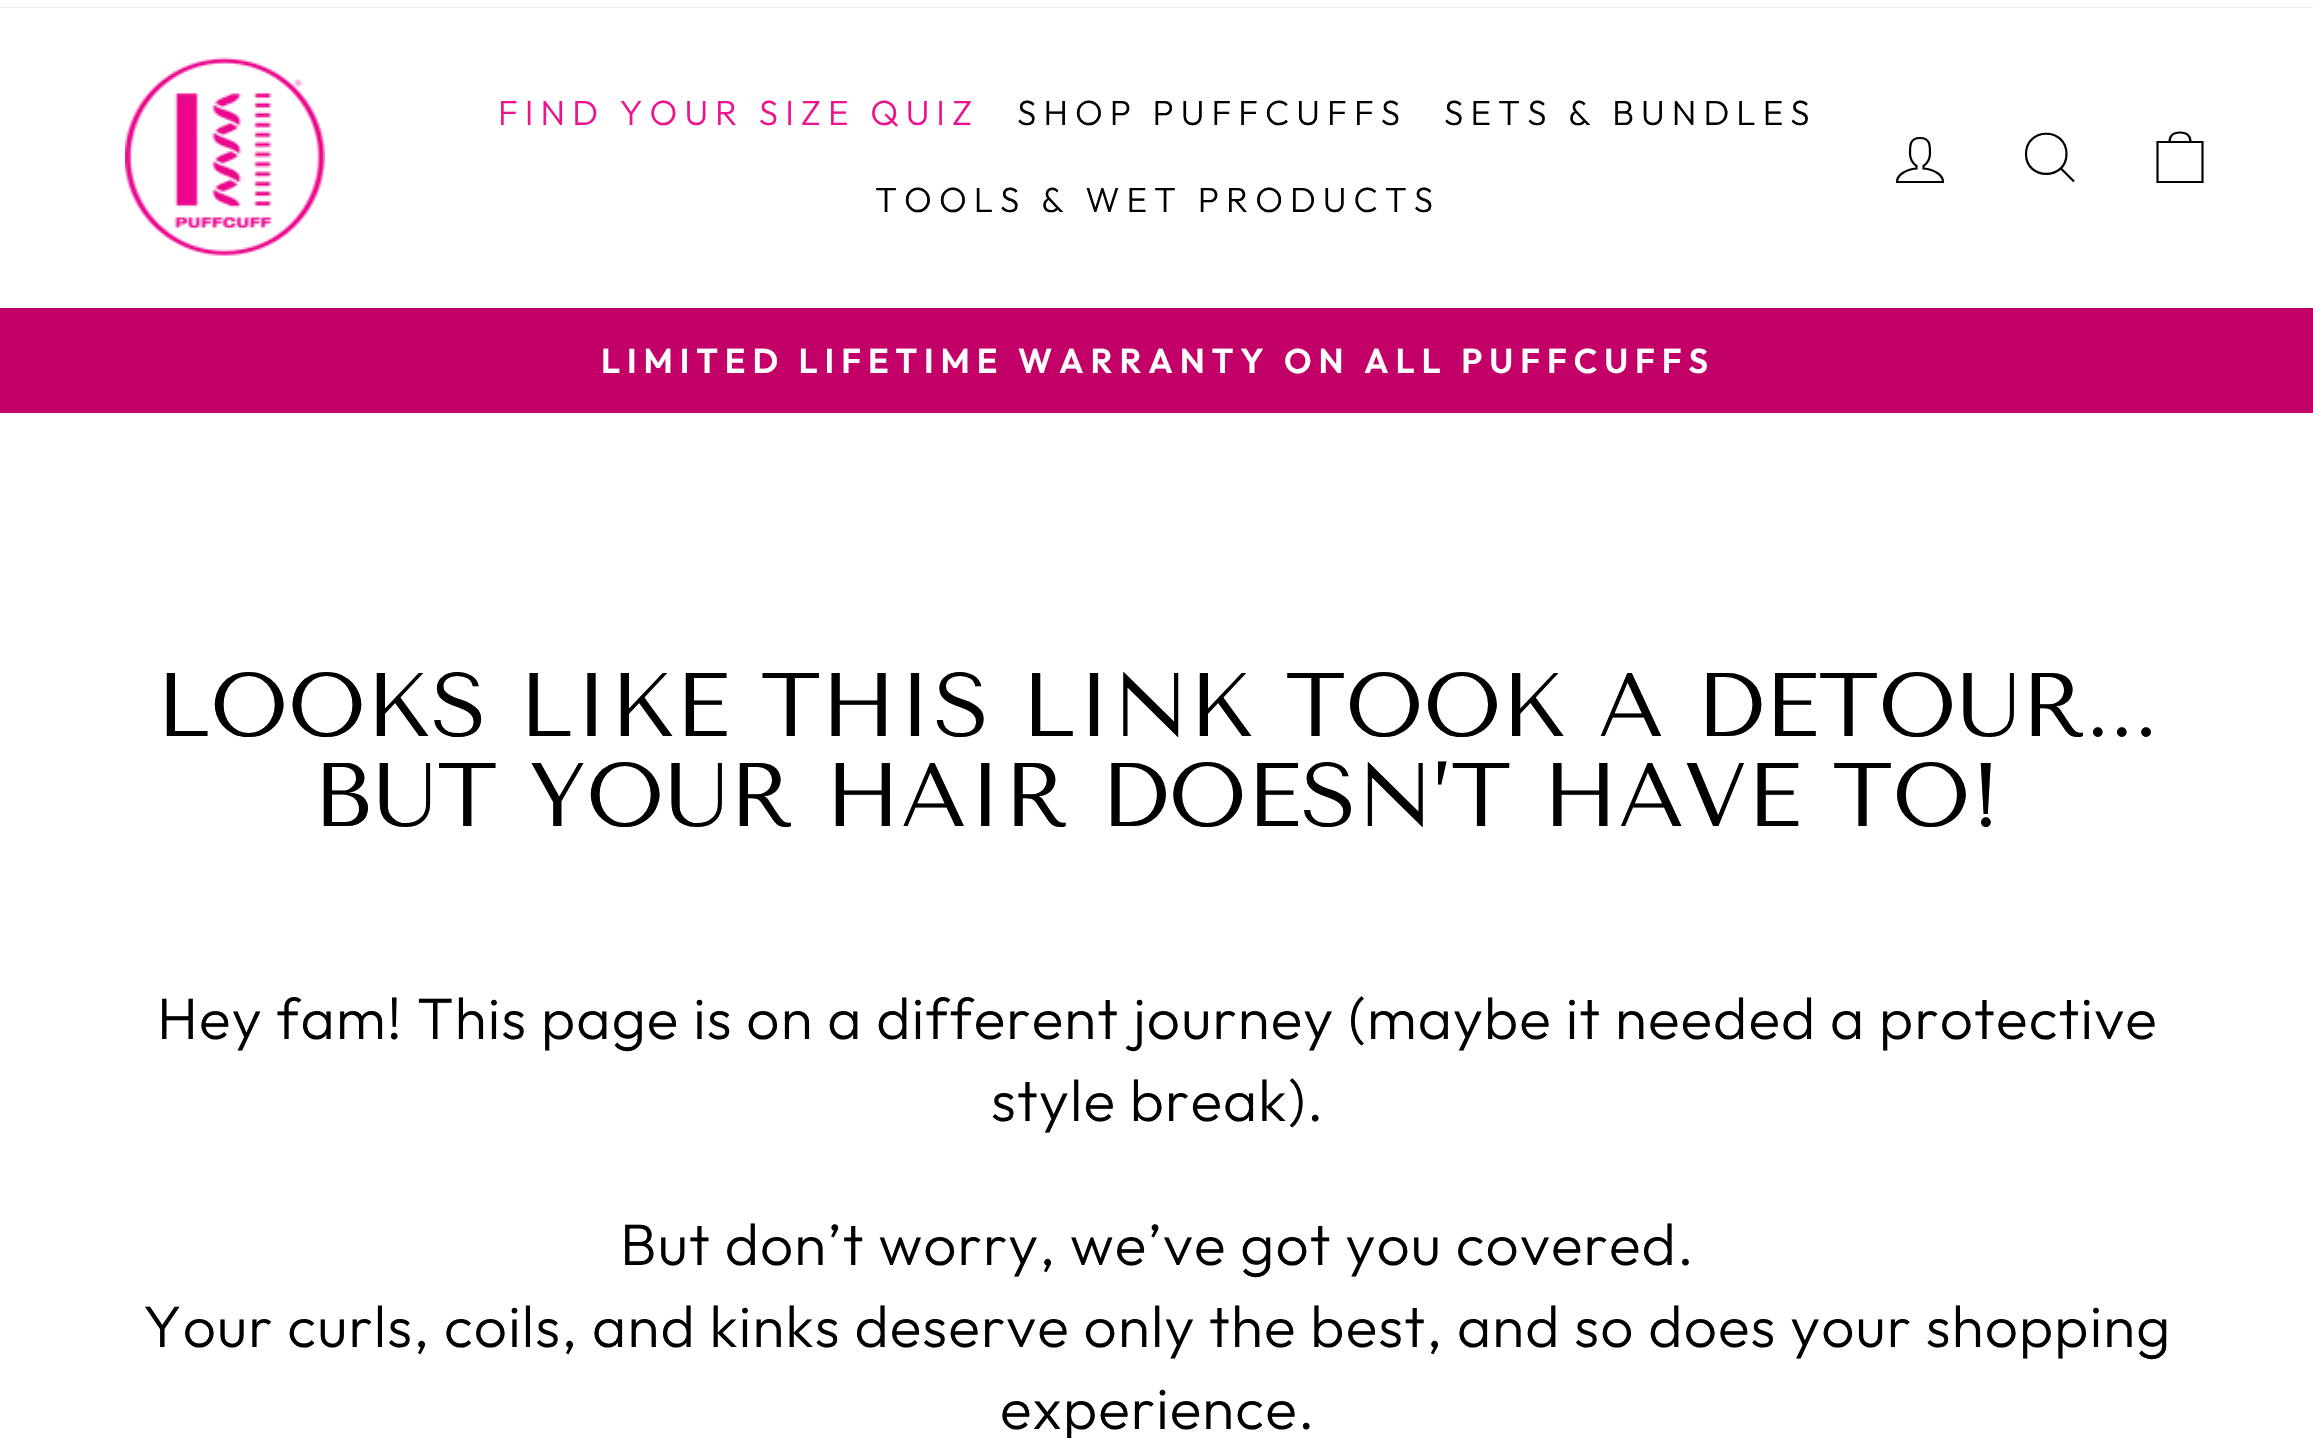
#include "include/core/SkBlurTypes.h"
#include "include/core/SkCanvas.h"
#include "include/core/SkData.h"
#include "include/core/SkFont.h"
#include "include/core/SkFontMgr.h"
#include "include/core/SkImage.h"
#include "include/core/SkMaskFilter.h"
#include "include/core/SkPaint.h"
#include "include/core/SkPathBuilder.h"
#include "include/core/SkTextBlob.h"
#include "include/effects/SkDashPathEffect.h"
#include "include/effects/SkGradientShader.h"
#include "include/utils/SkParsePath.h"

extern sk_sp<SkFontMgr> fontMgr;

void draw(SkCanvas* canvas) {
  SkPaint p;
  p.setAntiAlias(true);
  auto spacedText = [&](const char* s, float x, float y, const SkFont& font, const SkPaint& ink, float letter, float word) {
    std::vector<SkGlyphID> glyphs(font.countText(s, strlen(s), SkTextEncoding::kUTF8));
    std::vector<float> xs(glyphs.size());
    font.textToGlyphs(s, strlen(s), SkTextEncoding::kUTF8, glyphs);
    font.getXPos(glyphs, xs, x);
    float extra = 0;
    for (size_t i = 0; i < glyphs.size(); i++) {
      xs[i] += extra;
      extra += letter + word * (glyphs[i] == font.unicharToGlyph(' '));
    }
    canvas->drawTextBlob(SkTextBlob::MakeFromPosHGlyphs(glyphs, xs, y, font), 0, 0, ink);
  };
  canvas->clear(SK_ColorWHITE);
  p.setColor(SkColorSetRGB(194, 0, 104));
  canvas->drawRect(SkRect::MakeLTRB(0, 308, 2313, 413), p);
  p.setColor(SkColorSetARGB(51, 0, 0, 0));
  p.setMaskFilter(SkMaskFilter::MakeBlur(kNormal_SkBlurStyle, 1));
  canvas->drawRect(SkRect::MakeLTRB(0, 8, 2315, 308), p);
  p.setMaskFilter(nullptr);
  p.setColor(SK_ColorWHITE);
  canvas->drawRect(SkRect::MakeLTRB(0, 8, 2313, 308), p);
  canvas->drawImageRect(SkImages::DeferredFromEncodedData(SkData::MakeFromFileName("images/1.png")), SkRect::MakeLTRB(125, 57, 325, 256), SkSamplingOptions());
  p.setStyle(SkPaint::kStroke_Style);
  p.setStrokeWidth(2.2f);
  p.setColor(SK_ColorBLACK);
  canvas->drawPath(SkPathBuilder().moveTo(1923.5f, 168.5f).lineTo(1923.5f, 166).cubicTo(1927, 163.5f, 1930, 158.5f, 1930, 153.5f).cubicTo(1930, 145, 1930, 138, 1920, 138).cubicTo(1910, 138, 1910, 145, 1910, 153.5f).cubicTo(1910, 158.5f, 1913, 163.5f, 1916.5f, 166).lineTo(1916.5f, 168.5f).cubicTo(1905.5f, 169.5f, 1897, 175, 1897, 182).lineTo(1943, 182).cubicTo(1943, 175, 1934.5f, 169.5f, 1923.5f, 168.5f).close().detach(), p);
  canvas->drawPath(SkPathBuilder().moveTo(2066.5f, 154).cubicTo(2066.5f, 180.5f, 2026, 180.5f, 2026, 154).cubicTo(2026, 127, 2066.5f, 127, 2066.5f, 154).close().moveTo(2074, 181.5f).lineTo(2061, 168.5f).detach(), p);
  canvas->drawPath(SkPathBuilder().moveTo(2157.5f, 142).lineTo(2202.5f, 142).lineTo(2202.5f, 182).lineTo(2157.5f, 182).close().moveTo(2169.5f, 142).cubicTo(2169.5f, 134.5f, 2174, 132.5f, 2180, 132.5f).cubicTo(2186, 132.5f, 2190.5f, 134.5f, 2190.5f, 142).detach(), p);
  SkFont font1(fontMgr->matchFamilyStyle("Outfit", SkFontStyle(300, SkFontStyle::kNormal_Width, SkFontStyle::kUpright_Slant)), 35);
  font1.setSubpixel(true);
  p.setStyle(SkPaint::kFill_Style);
  p.setColor(SkColorSetRGB(237, 19, 142));
  spacedText("FIND YOUR SIZE QUIZ", 498, 125, font1, p, 7, 0);
  p.setColor(SK_ColorBLACK);
  spacedText("SHOP PUFFCUFFS", 1017, 125, font1, p, 7, 0);
  spacedText("SETS & BUNDLES", 1444, 125, font1, p, 7, 0);
  spacedText("TOOLS & WET PRODUCTS", 875, 212, font1, p, 7, 0);
  SkFont font2(fontMgr->matchFamilyStyle("Outfit", SkFontStyle(600, SkFontStyle::kNormal_Width, SkFontStyle::kUpright_Slant)), 34.4f);
  font2.setSubpixel(true);
  p.setColor(SK_ColorWHITE);
  spacedText("LIMITED LIFETIME WARRANTY ON ALL PUFFCUFFS", 601, 373, font2, p, 6.9f, 0);
  SkFont font3(fontMgr->matchFamilyStyle("Tenor Sans", SkFontStyle::Normal()), 90);
  font3.setSubpixel(true);
  p.setColor(SK_ColorBLACK);
  canvas->drawString("LOOKS LIKE THIS LINK TOOK A DETOUR...", 156, 736, font3, p);
  canvas->drawString("BUT YOUR HAIR DOESN’T HAVE TO!", 313, 826, font3, p);
  SkFont font4(fontMgr->matchFamilyStyle("Outfit", SkFontStyle(300, SkFontStyle::kNormal_Width, SkFontStyle::kUpright_Slant)), 58.5f);
  font4.setSubpixel(true);
  spacedText("Hey fam! This page is on a different journey (maybe it needed a protective", 157, 1039, font4, p, 1.12f, 0);
  spacedText("style break).", 991, 1121, font4, p, 1.12f, 0);
  spacedText("But don’t worry, we’ve got you covered.", 620, 1265, font4, p, 1.12f, 0);
  spacedText("Your curls, coils, and kinks deserve only the best, and so does your shopping", 143, 1347, font4, p, 1.12f, 0);
  spacedText("experience.", 1000, 1429, font4, p, 1.12f, 0);
}
